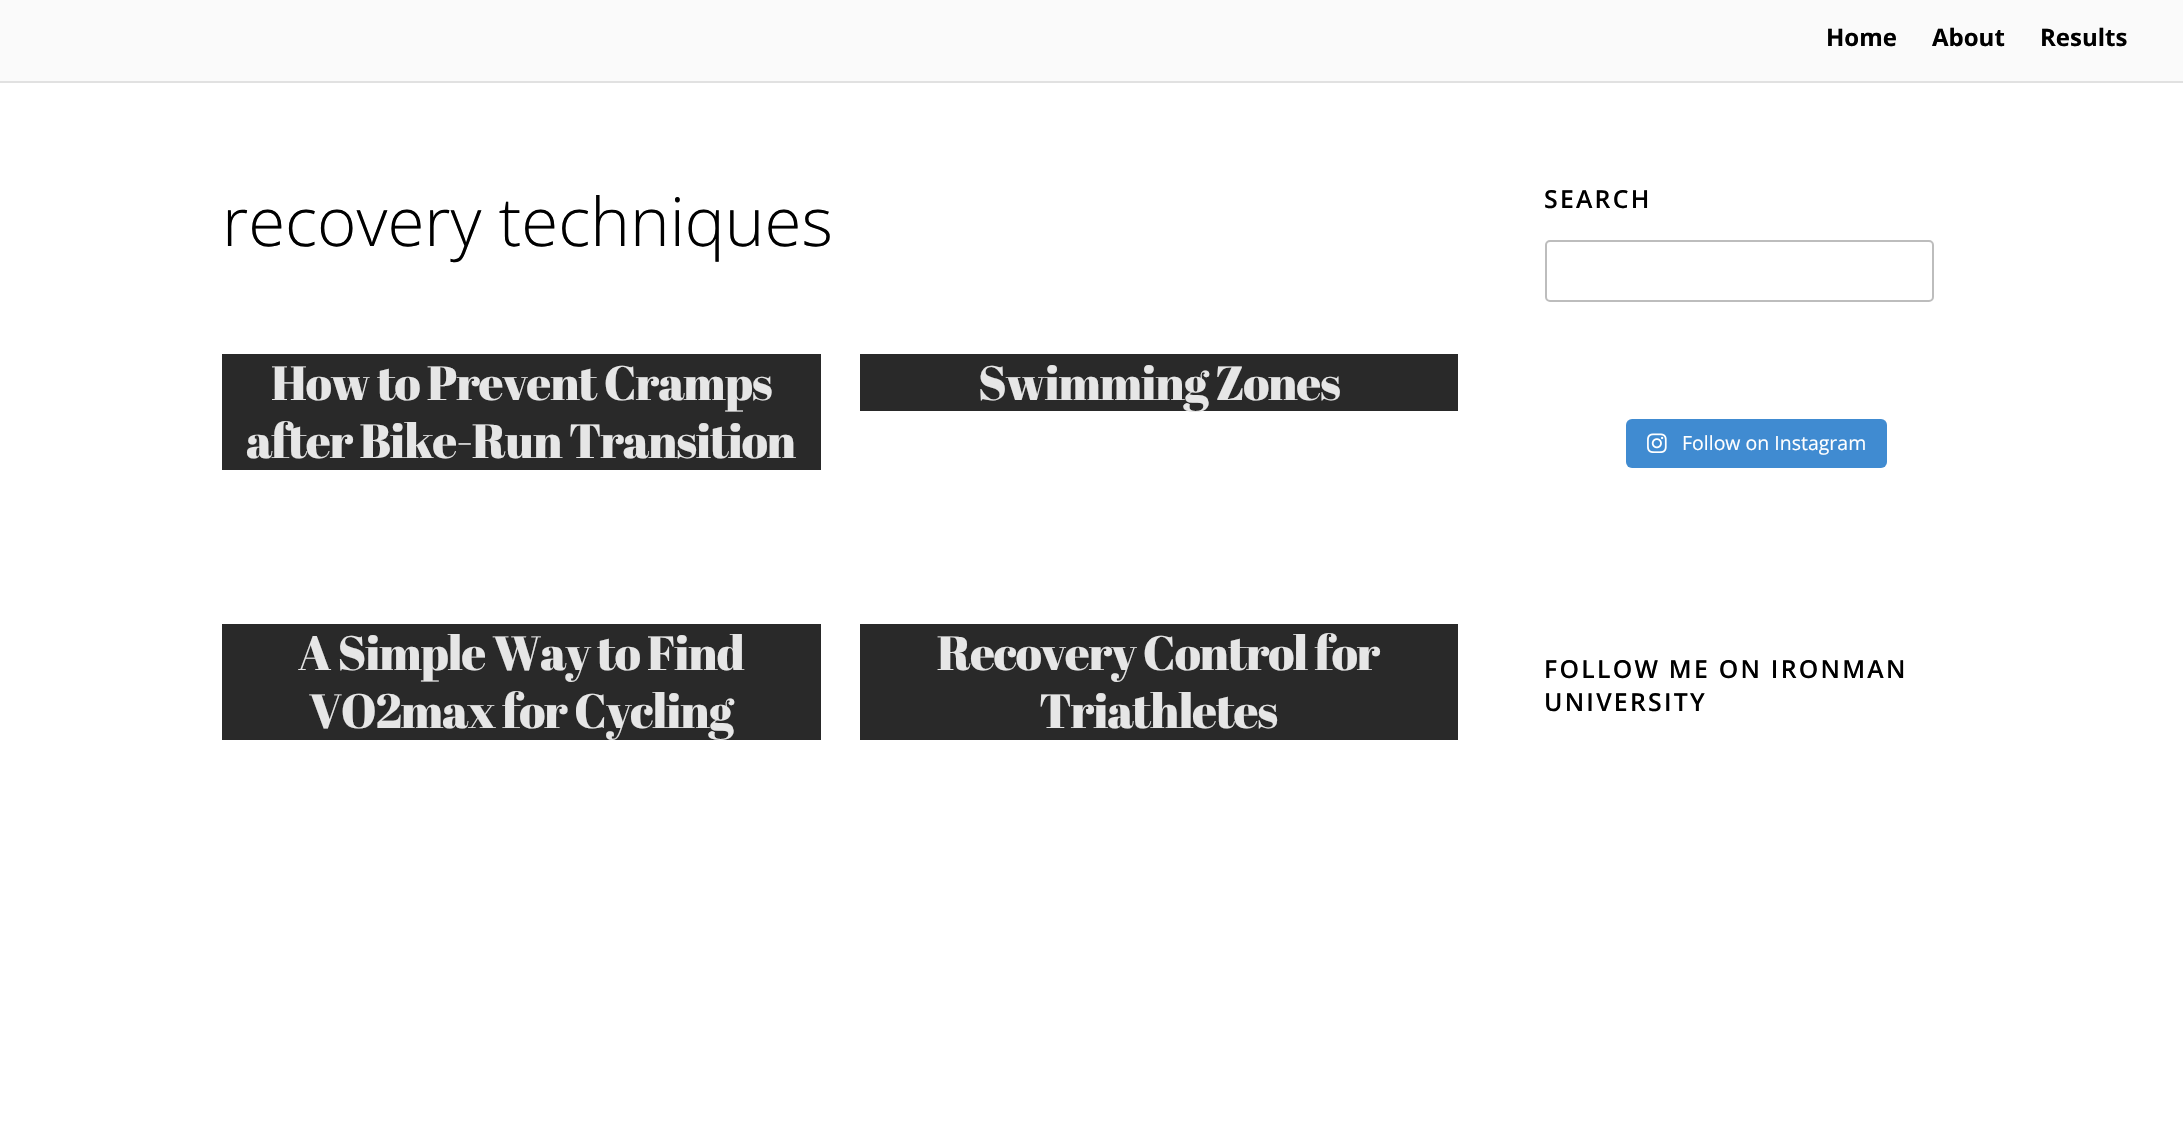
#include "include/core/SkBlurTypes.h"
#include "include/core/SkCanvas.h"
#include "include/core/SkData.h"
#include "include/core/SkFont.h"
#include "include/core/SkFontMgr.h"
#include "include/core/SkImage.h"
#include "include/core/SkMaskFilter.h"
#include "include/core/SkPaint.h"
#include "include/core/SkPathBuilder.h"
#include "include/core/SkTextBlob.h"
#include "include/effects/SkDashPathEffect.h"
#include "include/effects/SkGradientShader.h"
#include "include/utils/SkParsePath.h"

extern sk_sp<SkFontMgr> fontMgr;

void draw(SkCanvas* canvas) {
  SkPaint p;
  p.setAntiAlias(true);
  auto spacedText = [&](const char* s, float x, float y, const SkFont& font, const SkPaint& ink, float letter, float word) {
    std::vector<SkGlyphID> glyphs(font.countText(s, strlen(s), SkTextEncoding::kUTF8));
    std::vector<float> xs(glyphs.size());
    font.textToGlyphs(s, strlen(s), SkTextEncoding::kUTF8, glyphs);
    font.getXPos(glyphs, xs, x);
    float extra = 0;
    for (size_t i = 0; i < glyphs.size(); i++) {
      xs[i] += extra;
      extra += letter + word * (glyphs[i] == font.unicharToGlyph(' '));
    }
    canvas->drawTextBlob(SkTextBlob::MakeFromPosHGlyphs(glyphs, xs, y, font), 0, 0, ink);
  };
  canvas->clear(SK_ColorWHITE);
  p.setColor(SkColorSetRGB(250, 250, 250));
  canvas->drawRect(SkRect::MakeLTRB(0, 0, 2183, 81), p);
  p.setColor(SkColorSetRGB(225, 225, 225));
  canvas->drawRect(SkRect::MakeLTRB(0, 81, 2183, 83), p);
  p.setColor(SkColorSetRGB(41, 41, 41));
  canvas->drawRect(SkRect::MakeLTRB(222, 354, 821, 470), p);
  canvas->drawRect(SkRect::MakeLTRB(860, 354, 1458, 411), p);
  canvas->drawRect(SkRect::MakeLTRB(222, 624, 821, 740), p);
  canvas->drawRect(SkRect::MakeLTRB(860, 624, 1458, 740), p);
  p.setStyle(SkPaint::kStroke_Style);
  p.setStrokeWidth(2);
  p.setColor(SkColorSetRGB(189, 189, 189));
  canvas->drawRoundRect(SkRect::MakeLTRB(1546, 241, 1933, 301), 4, 4, p);
  p.setStyle(SkPaint::kFill_Style);
  p.setColor(SkColorSetRGB(64, 139, 209));
  canvas->drawRoundRect(SkRect::MakeLTRB(1626, 419, 1887, 468), 6, 6, p);
  canvas->drawImageRect(SkImages::DeferredFromEncodedData(SkData::MakeFromFileName("images/1.png")), SkRect::MakeLTRB(1647, 433, 1667, 453), SkSamplingOptions());
  SkFont font1(fontMgr->matchFamilyStyle("Open Sans", SkFontStyle::Bold()), 24);
  font1.setSubpixel(true);
  p.setColor(SK_ColorBLACK);
  canvas->drawString("Home", 1826, 46, font1, p);
  canvas->drawString("About", 1932, 46, font1, p);
  canvas->drawString("Results", 2040, 46, font1, p);
  SkFont font2(fontMgr->matchFamilyStyle("Open Sans", SkFontStyle(300, SkFontStyle::kNormal_Width, SkFontStyle::kUpright_Slant)), 67.25f);
  font2.setSubpixel(true);
  canvas->drawString("recovery techniques", 222, 246, font2, p);
  SkFont font3(fontMgr->matchFamilyStyle("Abril Fatface", SkFontStyle::Normal()), 48);
  font3.setSubpixel(true);
  p.setColor(SkColorSetRGB(230, 230, 230));
  spacedText("How to Prevent Cramps", 271, 400, font3, p, -1.2f, 0);
  spacedText("after Bike-Run Transition", 246, 458, font3, p, -1.2f, 0);
  spacedText("Swimming Zones", 978, 400, font3, p, -1.2f, 0);
  spacedText("A Simple Way to Find", 298, 670, font3, p, -1.2f, 0);
  spacedText("VO2max for Cycling", 309, 728, font3, p, -1.2f, 0);
  spacedText("Recovery Control for", 937, 670, font3, p, -1.2f, 0);
  spacedText("Triathletes", 1039, 728, font3, p, -1.2f, 0);
  SkFont font4(fontMgr->matchFamilyStyle("Open Sans", SkFontStyle(600, SkFontStyle::kNormal_Width, SkFontStyle::kUpright_Slant)), 24.8f);
  font4.setSubpixel(true);
  p.setColor(SK_ColorBLACK);
  spacedText("SEARCH", 1544, 208, font4, p, 2.25f, 0);
  SkFont font5(fontMgr->matchFamilyStyle("Open Sans", SkFontStyle::Normal()), 19.5f);
  font5.setSubpixel(true);
  p.setColor(SK_ColorWHITE);
  canvas->drawString("Follow on Instagram", 1682, 450, font5, p);
  p.setColor(SK_ColorBLACK);
  spacedText("FOLLOW ME ON IRONMAN", 1544, 678, font4, p, 2.25f, 0);
  spacedText("UNIVERSITY", 1544, 711, font4, p, 2.25f, 0);
}
